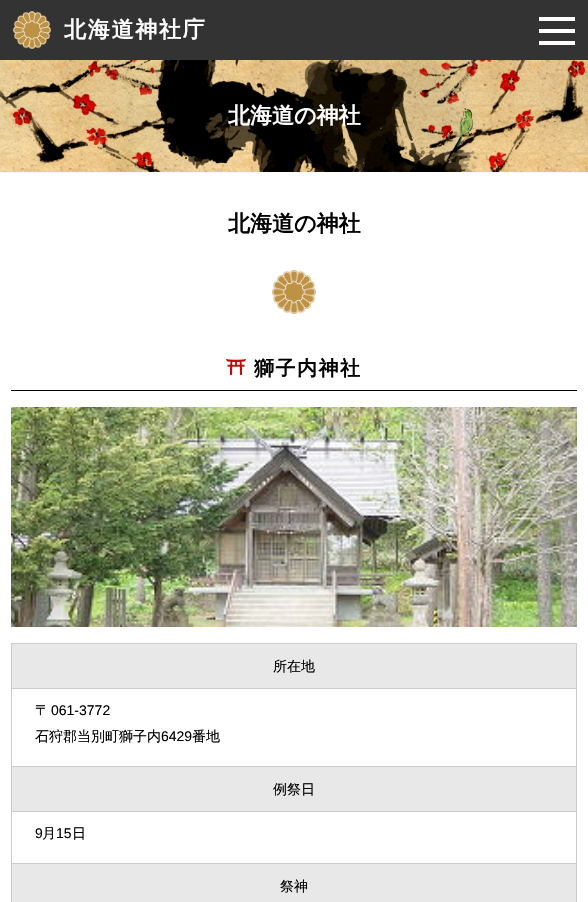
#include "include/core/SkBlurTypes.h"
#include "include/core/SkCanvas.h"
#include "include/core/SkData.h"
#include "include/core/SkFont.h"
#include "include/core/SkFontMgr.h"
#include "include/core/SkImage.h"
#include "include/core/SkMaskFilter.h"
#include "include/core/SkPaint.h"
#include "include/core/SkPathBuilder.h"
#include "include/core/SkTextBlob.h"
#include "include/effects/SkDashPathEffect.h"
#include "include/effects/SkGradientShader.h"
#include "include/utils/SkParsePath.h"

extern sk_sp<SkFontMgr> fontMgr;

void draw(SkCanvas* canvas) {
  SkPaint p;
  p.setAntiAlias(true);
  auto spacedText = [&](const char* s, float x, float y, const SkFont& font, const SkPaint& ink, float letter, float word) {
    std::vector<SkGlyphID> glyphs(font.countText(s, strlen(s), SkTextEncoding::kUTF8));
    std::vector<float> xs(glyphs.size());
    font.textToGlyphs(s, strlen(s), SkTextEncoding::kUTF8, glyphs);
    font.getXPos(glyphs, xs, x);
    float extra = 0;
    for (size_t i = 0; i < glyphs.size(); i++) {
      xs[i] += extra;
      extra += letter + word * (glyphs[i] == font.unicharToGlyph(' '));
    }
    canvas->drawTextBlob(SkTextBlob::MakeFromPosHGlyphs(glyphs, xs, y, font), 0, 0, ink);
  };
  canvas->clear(SK_ColorWHITE);
  p.setColor(SkColorSetRGB(51, 51, 51));
  canvas->drawRect(SkRect::MakeLTRB(0, 0, 588, 60), p);
  canvas->drawImageRect(SkImages::DeferredFromEncodedData(SkData::MakeFromFileName("images/1.png")), SkRect::MakeLTRB(13, 11, 51, 49), SkSamplingOptions());
  p.setColor(SK_ColorWHITE);
  canvas->drawRect(SkRect::MakeLTRB(539, 17, 575, 21), p);
  canvas->drawRect(SkRect::MakeLTRB(539, 29, 575, 33), p);
  canvas->drawRect(SkRect::MakeLTRB(539, 41, 575, 45), p);
  canvas->drawImageRect(SkImages::DeferredFromEncodedData(SkData::MakeFromFileName("images/2.png")), SkRect::MakeLTRB(0, 60, 588, 172), SkSamplingOptions());
  canvas->drawImageRect(SkImages::DeferredFromEncodedData(SkData::MakeFromFileName("images/3.png")), SkRect::MakeLTRB(272, 270, 316, 314), SkSamplingOptions());
  p.setColor(SK_ColorBLACK);
  canvas->drawRect(SkRect::MakeLTRB(11, 390, 577, 391), p);
  canvas->drawImageRect(SkImages::DeferredFromEncodedData(SkData::MakeFromFileName("images/4.png")), SkRect::MakeLTRB(226, 359, 246, 375), SkSamplingOptions());
  canvas->drawImageRect(SkImages::DeferredFromEncodedData(SkData::MakeFromFileName("images/5.png")), SkRect::MakeLTRB(11, 407, 577, 627), SkSamplingOptions());
  p.setColor(SkColorSetRGB(204, 204, 204));
  canvas->drawRect(SkRect::MakeLTRB(11, 643, 577, 644), p);
  canvas->drawRect(SkRect::MakeLTRB(576, 643, 577, 902), p);
  canvas->drawRect(SkRect::MakeLTRB(11, 643, 12, 902), p);
  p.setColor(SkColorSetRGB(232, 232, 232));
  canvas->drawRect(SkRect::MakeLTRB(12, 644, 576, 688), p);
  p.setColor(SkColorSetRGB(204, 204, 204));
  canvas->drawRect(SkRect::MakeLTRB(12, 688, 576, 689), p);
  canvas->drawRect(SkRect::MakeLTRB(12, 766, 576, 767), p);
  p.setColor(SkColorSetRGB(232, 232, 232));
  canvas->drawRect(SkRect::MakeLTRB(12, 767, 576, 811), p);
  p.setColor(SkColorSetRGB(204, 204, 204));
  canvas->drawRect(SkRect::MakeLTRB(12, 811, 576, 812), p);
  canvas->drawRect(SkRect::MakeLTRB(12, 863, 576, 864), p);
  p.setColor(SkColorSetRGB(232, 232, 232));
  canvas->drawRect(SkRect::MakeLTRB(12, 864, 576, 902), p);
  SkFont font1(fontMgr->matchFamilyStyle("WenQuanYi Zen Hei", SkFontStyle::Bold()), 22);
  font1.setSubpixel(true);
  p.setColor(SK_ColorWHITE);
  spacedText("北海道神社庁", 64, 37, font1, p, 1.75f, 0);
  canvas->drawString("北海道の神社", 228, 123, font1, p);
  p.setColor(SK_ColorBLACK);
  canvas->drawString("北海道の神社", 228, 231, font1, p);
  SkFont font2(fontMgr->matchFamilyStyle("WenQuanYi Zen Hei", SkFontStyle::Bold()), 20);
  font2.setSubpixel(true);
  spacedText("獅子内神社", 254, 375, font2, p, 1.5f, 0);
  SkFont font3(fontMgr->matchFamilyStyle("WenQuanYi Zen Hei", SkFontStyle(500, SkFontStyle::kNormal_Width, SkFontStyle::kUpright_Slant)), 14);
  font3.setSubpixel(true);
  canvas->drawString("所在地", 273, 671, font3, p);
  canvas->drawString("〒", 35, 715, font3, p);
  SkFont font4(fontMgr->matchFamilyStyle("Liberation Sans", SkFontStyle::Normal()), 14);
  font4.setSubpixel(true);
  canvas->drawString("061-3772", 51, 715, font4, p);
  canvas->drawString("石狩郡当別町獅子内", 35, 741, font3, p);
  canvas->drawString("6429", 161, 741, font4, p);
  canvas->drawString("番地", 192, 741, font3, p);
  canvas->drawString("例祭日", 273, 794, font3, p);
  canvas->drawString("9", 35, 838, font4, p);
  canvas->drawString("月", 42, 838, font3, p);
  canvas->drawString("15", 56, 838, font4, p);
  canvas->drawString("日", 72, 838, font3, p);
  canvas->drawString("祭神", 280, 891, font3, p);
}
